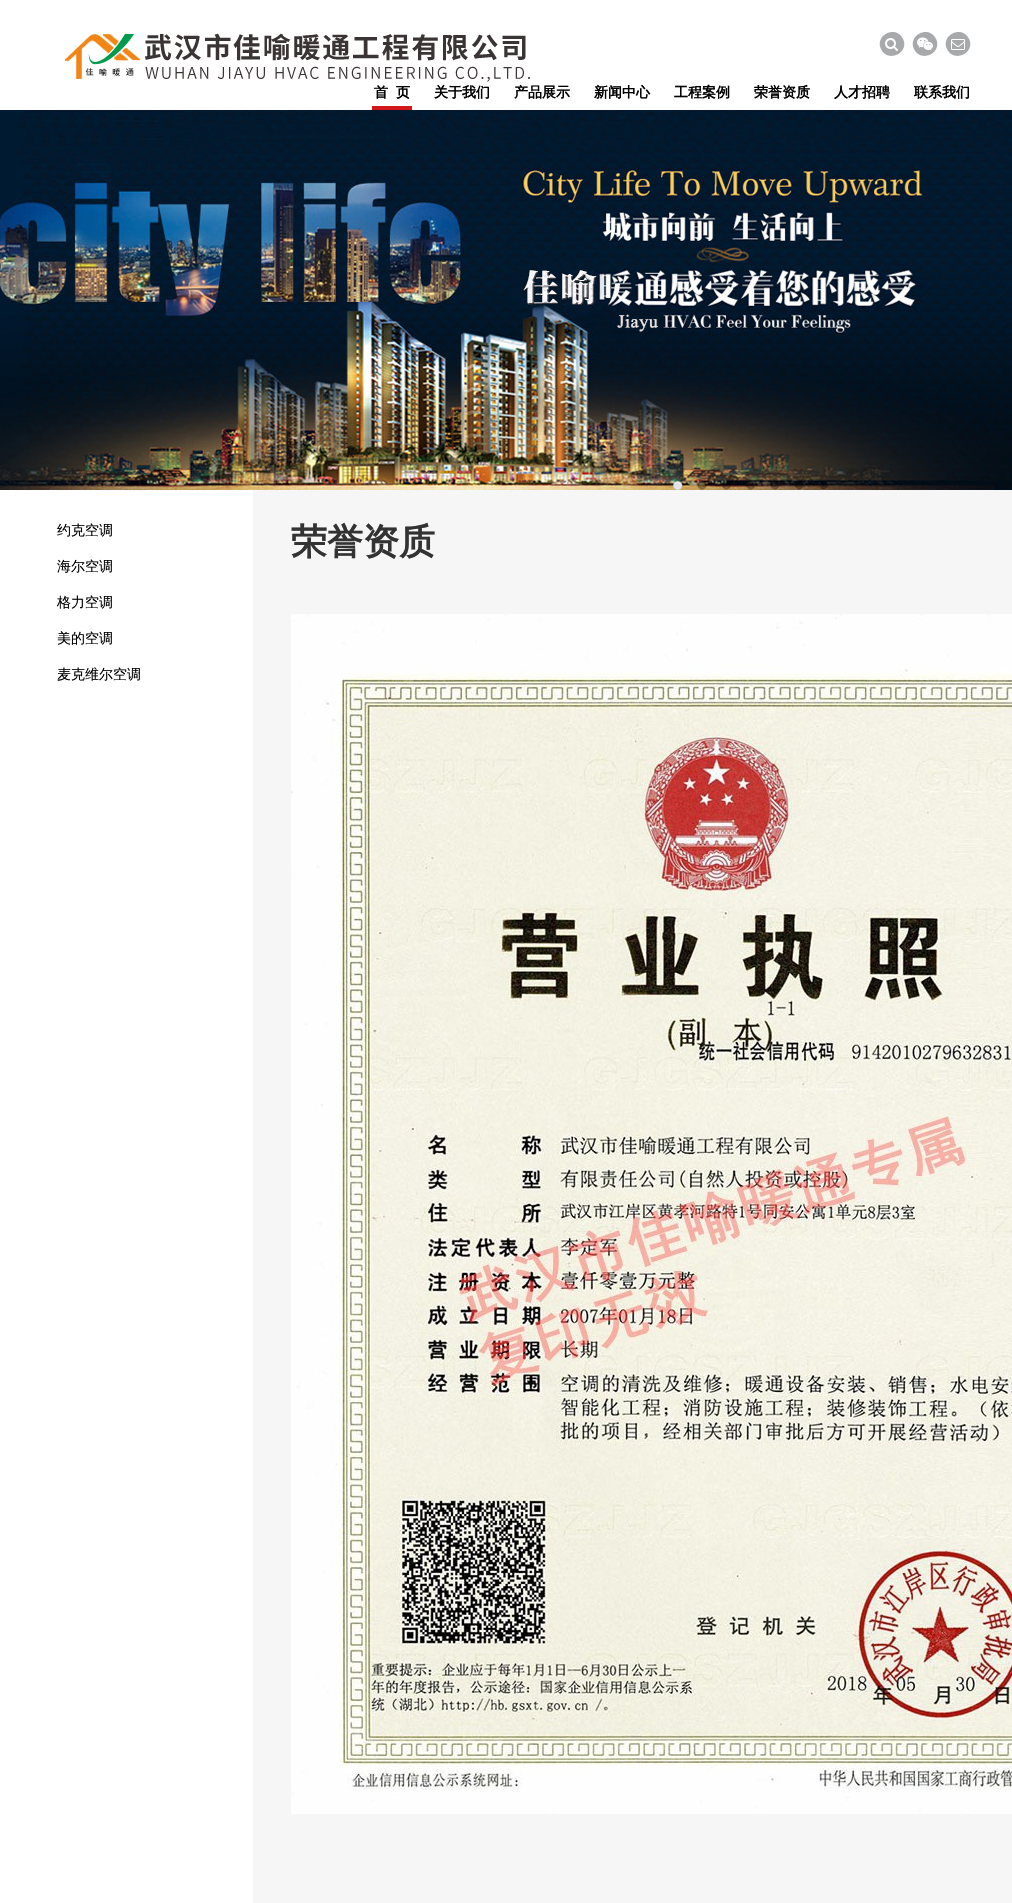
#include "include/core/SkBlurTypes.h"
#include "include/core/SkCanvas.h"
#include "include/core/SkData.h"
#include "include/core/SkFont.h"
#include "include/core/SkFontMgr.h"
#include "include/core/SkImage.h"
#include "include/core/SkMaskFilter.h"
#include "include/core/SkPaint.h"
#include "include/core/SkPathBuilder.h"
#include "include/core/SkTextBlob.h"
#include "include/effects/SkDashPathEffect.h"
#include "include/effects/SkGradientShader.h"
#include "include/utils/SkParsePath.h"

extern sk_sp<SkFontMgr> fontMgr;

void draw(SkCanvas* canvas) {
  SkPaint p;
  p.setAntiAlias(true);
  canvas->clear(SK_ColorWHITE);
  canvas->drawImageRect(SkImages::DeferredFromEncodedData(SkData::MakeFromFileName("images/1.png")), SkRect::MakeLTRB(65, 33, 530, 82), SkSamplingOptions());
  p.setColor(SkColorSetRGB(168, 169, 171));
  canvas->drawPath(SkPathBuilder().moveTo(902.5f, 38).cubicTo(910.5f, 51.5f, 889.5f, 63.5f, 881.5f, 50).cubicTo(873.5f, 36.5f, 894.5f, 24.5f, 902.5f, 38).close().detach(), p);
  canvas->drawImageRect(SkImages::DeferredFromEncodedData(SkData::MakeFromFileName("images/2.png")), SkRect::MakeLTRB(885, 38, 898, 51), SkSamplingOptions());
  canvas->drawPath(SkPathBuilder().moveTo(935.5f, 38).cubicTo(943.5f, 51.5f, 922.5f, 63.5f, 914.5f, 50).cubicTo(906.5f, 36.5f, 927.5f, 24.5f, 935.5f, 38).close().detach(), p);
  canvas->drawImageRect(SkImages::DeferredFromEncodedData(SkData::MakeFromFileName("images/3.png")), SkRect::MakeLTRB(917, 37, 933, 51), SkSamplingOptions());
  canvas->drawPath(SkPathBuilder().moveTo(968.5f, 38).cubicTo(976.5f, 51.5f, 955.5f, 63.5f, 947.5f, 50).cubicTo(939.5f, 36.5f, 960.5f, 24.5f, 968.5f, 38).close().detach(), p);
  canvas->drawImageRect(SkImages::DeferredFromEncodedData(SkData::MakeFromFileName("images/4.png")), SkRect::MakeLTRB(951, 39, 965, 50), SkSamplingOptions());
  p.setColor(SkColorSetRGB(211, 23, 26));
  canvas->drawRect(SkRect::MakeLTRB(372, 106, 412, 110), p);
  canvas->drawImageRect(SkImages::DeferredFromEncodedData(SkData::MakeFromFileName("images/5.png")), SkRect::MakeLTRB(0, 110, 1012, 490), SkSamplingOptions());
  canvas->drawImageRect(SkImages::DeferredFromEncodedData(SkData::MakeFromFileName("images/6.png")), SkRect::MakeLTRB(418, 158, 978, 489), SkSamplingOptions());
  p.setColor(SkColorSetRGB(246, 246, 246));
  canvas->drawRect(SkRect::MakeLTRB(253, 490, 1012, 1903), p);
  canvas->drawImageRect(SkImages::DeferredFromEncodedData(SkData::MakeFromFileName("images/7.png")), SkRect::MakeLTRB(291, 614, 1012, 1814), SkSamplingOptions());
  SkFont font1(fontMgr->matchFamilyStyle("WenQuanYi Zen Hei", SkFontStyle::Bold()), 14);
  font1.setSubpixel(true);
  p.setColor(SK_ColorBLACK);
  canvas->drawString("首", 374, 97, font1, p);
  canvas->drawString("页", 396, 97, font1, p);
  canvas->drawString("关于我们", 434, 97, font1, p);
  canvas->drawString("产品展示", 514, 97, font1, p);
  canvas->drawString("新闻中心", 594, 97, font1, p);
  canvas->drawString("工程案例", 674, 97, font1, p);
  canvas->drawString("荣誉资质", 754, 97, font1, p);
  canvas->drawString("人才招聘", 834, 97, font1, p);
  canvas->drawString("联系我们", 914, 97, font1, p);
  SkFont font2(fontMgr->matchFamilyStyle("WenQuanYi Zen Hei", SkFontStyle(500, SkFontStyle::kNormal_Width, SkFontStyle::kUpright_Slant)), 14);
  font2.setSubpixel(true);
  canvas->drawString("约克空调", 57, 535, font2, p);
  canvas->drawString("海尔空调", 57, 571, font2, p);
  canvas->drawString("格力空调", 57, 607, font2, p);
  canvas->drawString("美的空调", 57, 643, font2, p);
  canvas->drawString("麦克维尔空调", 57, 679, font2, p);
  SkFont font3(fontMgr->matchFamilyStyle("WenQuanYi Zen Hei", SkFontStyle::Bold()), 36);
  font3.setSubpixel(true);
  p.setColor(SkColorSetRGB(51, 51, 51));
  canvas->drawString("荣誉资质", 291, 554, font3, p);
}
